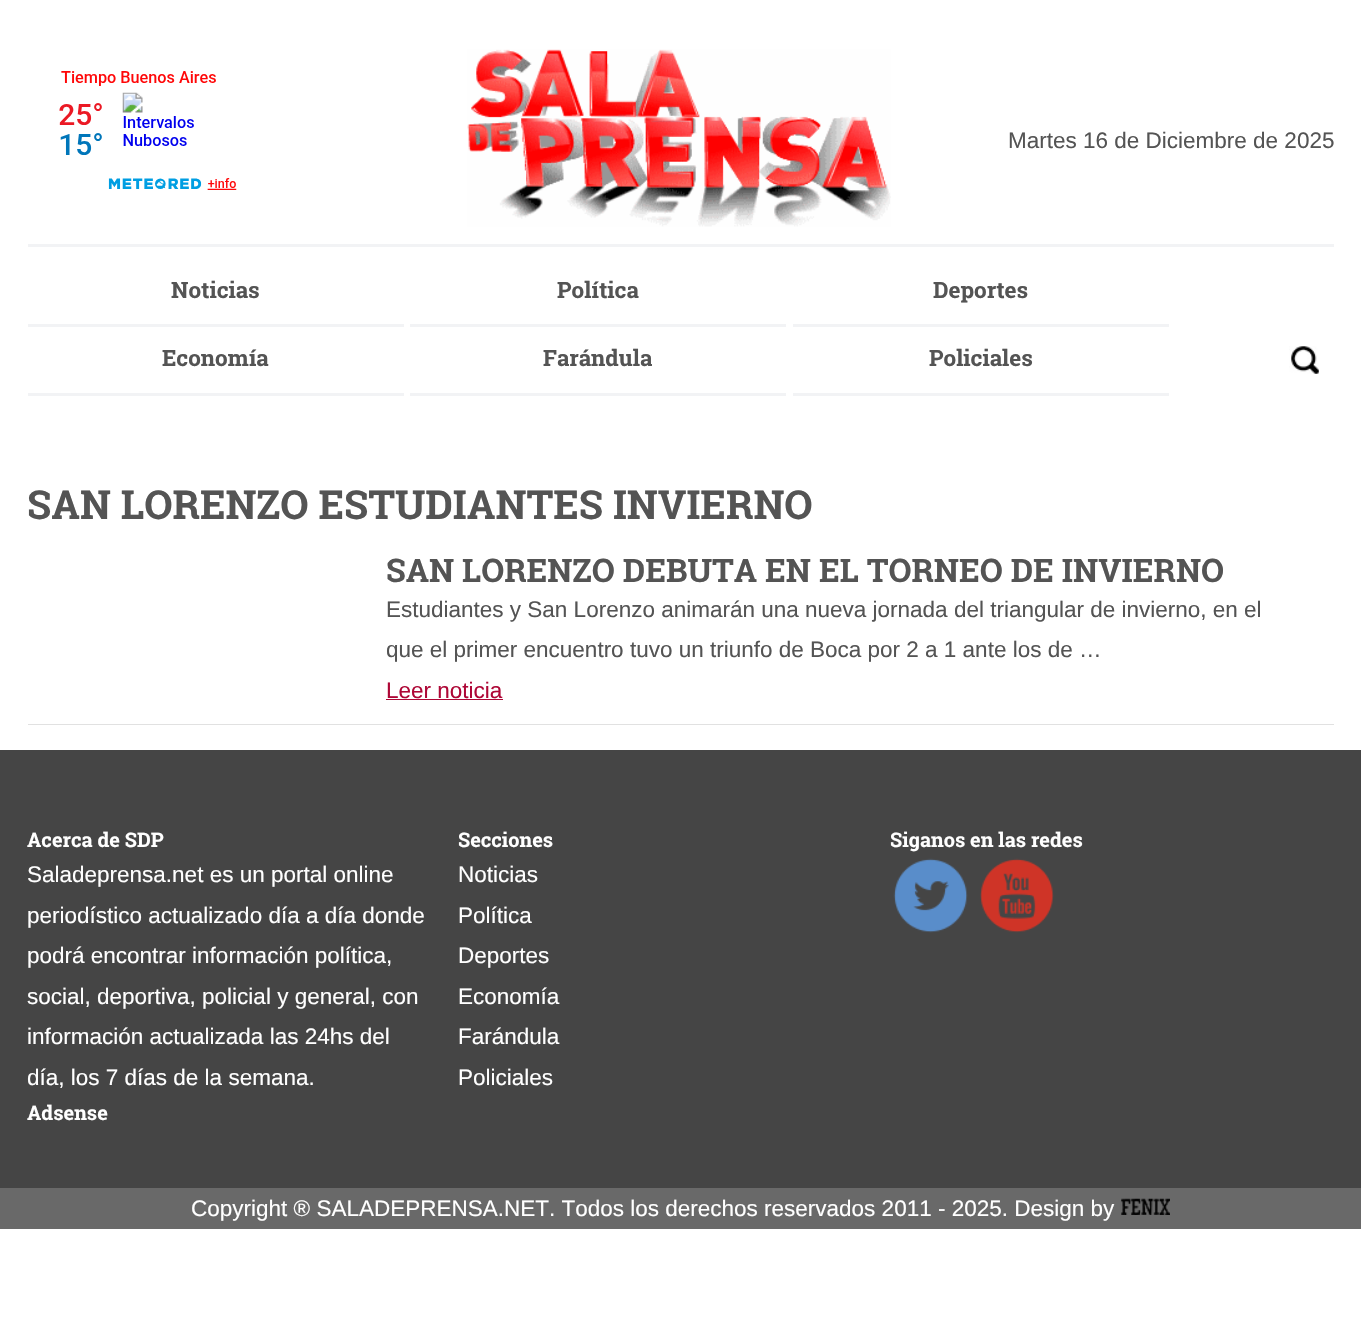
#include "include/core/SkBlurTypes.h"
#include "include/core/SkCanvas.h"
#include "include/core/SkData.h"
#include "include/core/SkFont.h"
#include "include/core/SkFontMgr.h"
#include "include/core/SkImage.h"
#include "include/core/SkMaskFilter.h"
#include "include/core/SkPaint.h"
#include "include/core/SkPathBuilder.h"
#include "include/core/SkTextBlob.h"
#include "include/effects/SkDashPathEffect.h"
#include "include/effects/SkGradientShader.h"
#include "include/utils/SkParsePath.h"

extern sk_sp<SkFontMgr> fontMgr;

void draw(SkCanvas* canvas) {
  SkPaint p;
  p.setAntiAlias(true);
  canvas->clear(SK_ColorWHITE);
  canvas->drawImageRect(SkImages::DeferredFromEncodedData(SkData::MakeFromFileName("images/1.png")), SkRect::MakeLTRB(59, 71, 237, 190), SkSamplingOptions());
  canvas->drawImageRect(SkImages::DeferredFromEncodedData(SkData::MakeFromFileName("images/2.png")), SkRect::MakeLTRB(467, 49, 891, 227), SkSamplingOptions());
  p.setColor(SkColorSetRGB(242, 243, 245));
  canvas->drawRect(SkRect::MakeLTRB(28, 244, 1334, 247), p);
  canvas->drawRect(SkRect::MakeLTRB(28, 324, 404, 327), p);
  canvas->drawRect(SkRect::MakeLTRB(410, 324, 786, 327), p);
  canvas->drawRect(SkRect::MakeLTRB(793, 324, 1169, 327), p);
  canvas->drawRect(SkRect::MakeLTRB(28, 393, 404, 396), p);
  canvas->drawRect(SkRect::MakeLTRB(410, 393, 786, 396), p);
  canvas->drawRect(SkRect::MakeLTRB(793, 393, 1169, 396), p);
  canvas->drawImageRect(SkImages::DeferredFromEncodedData(SkData::MakeFromFileName("images/3.png")), SkRect::MakeLTRB(1289, 346, 1319, 374), SkSamplingOptions());
  p.setColor(SkColorSetRGB(225, 225, 225));
  canvas->drawRect(SkRect::MakeLTRB(28, 724, 1334, 725), p);
  p.setColor(SkColorSetRGB(174, 7, 54));
  canvas->drawRect(SkRect::MakeLTRB(386, 699, 503, 700), p);
  p.setColor(SkColorSetRGB(69, 69, 69));
  canvas->drawRect(SkRect::MakeLTRB(0, 750, 1361, 1188), p);
  canvas->drawImageRect(SkImages::DeferredFromEncodedData(SkData::MakeFromFileName("images/4.png")), SkRect::MakeLTRB(893, 858, 968, 933), SkSamplingOptions());
  canvas->drawImageRect(SkImages::DeferredFromEncodedData(SkData::MakeFromFileName("images/5.png")), SkRect::MakeLTRB(980, 858, 1054, 933), SkSamplingOptions());
  p.setColor(SkColorSetRGB(105, 105, 105));
  canvas->drawRect(SkRect::MakeLTRB(0, 1188, 1361, 1229), p);
  canvas->drawImageRect(SkImages::DeferredFromEncodedData(SkData::MakeFromFileName("images/6.png")), SkRect::MakeLTRB(1121, 1198, 1170, 1215), SkSamplingOptions());
  SkFont font1(fontMgr->matchFamilyStyle("Liberation Sans", SkFontStyle::Normal()), 22.5f);
  font1.setSubpixel(true);
  p.setColor(SkColorSetRGB(84, 84, 84));
  canvas->drawString("Martes 16 de Diciembre de 2025", 1008, 148, font1, p);
  SkFont font2(fontMgr->matchFamilyStyle("Roboto Slab", SkFontStyle::Bold()), 22.5f);
  font2.setSubpixel(true);
  canvas->drawString("Noticias", 171, 298, font2, p);
  canvas->drawString("Política", 557, 298, font2, p);
  canvas->drawString("Deportes", 933, 298, font2, p);
  canvas->drawString("Economía", 162, 366, font2, p);
  canvas->drawString("Farándula", 543, 366, font2, p);
  canvas->drawString("Policiales", 929, 366, font2, p);
  SkFont font3(fontMgr->matchFamilyStyle("Roboto Slab", SkFontStyle::Bold()), 40);
  font3.setSubpixel(true);
  canvas->drawString("SAN LORENZO ESTUDIANTES INVIERNO", 27, 519, font3, p);
  SkFont font4(fontMgr->matchFamilyStyle("Roboto Slab", SkFontStyle::Bold()), 32.5f);
  font4.setSubpixel(true);
  canvas->drawString("SAN LORENZO DEBUTA EN EL TORNEO DE INVIERNO", 386, 582, font4, p);
  canvas->drawString("Estudiantes y San Lorenzo animarán una nueva jornada del triangular de invierno, en el", 386, 617, font1, p);
  canvas->drawString("que el primer encuentro tuvo un triunfo de Boca por 2 a 1 ante los de …", 386, 657, font1, p);
  p.setColor(SkColorSetRGB(174, 7, 54));
  canvas->drawString("Leer noticia", 386, 698, font1, p);
  SkFont font5(fontMgr->matchFamilyStyle("Roboto Slab", SkFontStyle::Bold()), 20);
  font5.setSubpixel(true);
  p.setColor(SK_ColorWHITE);
  canvas->drawString("Acerca de SDP", 27, 847, font5, p);
  canvas->drawString("Saladeprensa.net es un portal online", 27, 882, font1, p);
  canvas->drawString("periodístico actualizado día a día donde", 27, 923, font1, p);
  canvas->drawString("podrá encontrar información política,", 27, 963, font1, p);
  canvas->drawString("social, deportiva, policial y general, con", 27, 1004, font1, p);
  canvas->drawString("información actualizada las 24hs del", 27, 1044, font1, p);
  canvas->drawString("día, los 7 días de la semana.", 27, 1085, font1, p);
  canvas->drawString("Secciones", 458, 847, font5, p);
  canvas->drawString("Noticias", 458, 882, font1, p);
  canvas->drawString("Política", 458, 923, font1, p);
  canvas->drawString("Deportes", 458, 963, font1, p);
  canvas->drawString("Economía", 458, 1004, font1, p);
  canvas->drawString("Farándula", 458, 1044, font1, p);
  canvas->drawString("Policiales", 458, 1085, font1, p);
  canvas->drawString("Siganos en las redes", 890, 847, font5, p);
  canvas->drawString("Adsense", 27, 1120, font5, p);
  canvas->drawString("Copyright ® SALADEPRENSA.NET. Todos los derechos reservados 2011 - 2025. Design by", 191, 1216, font1, p);
}
